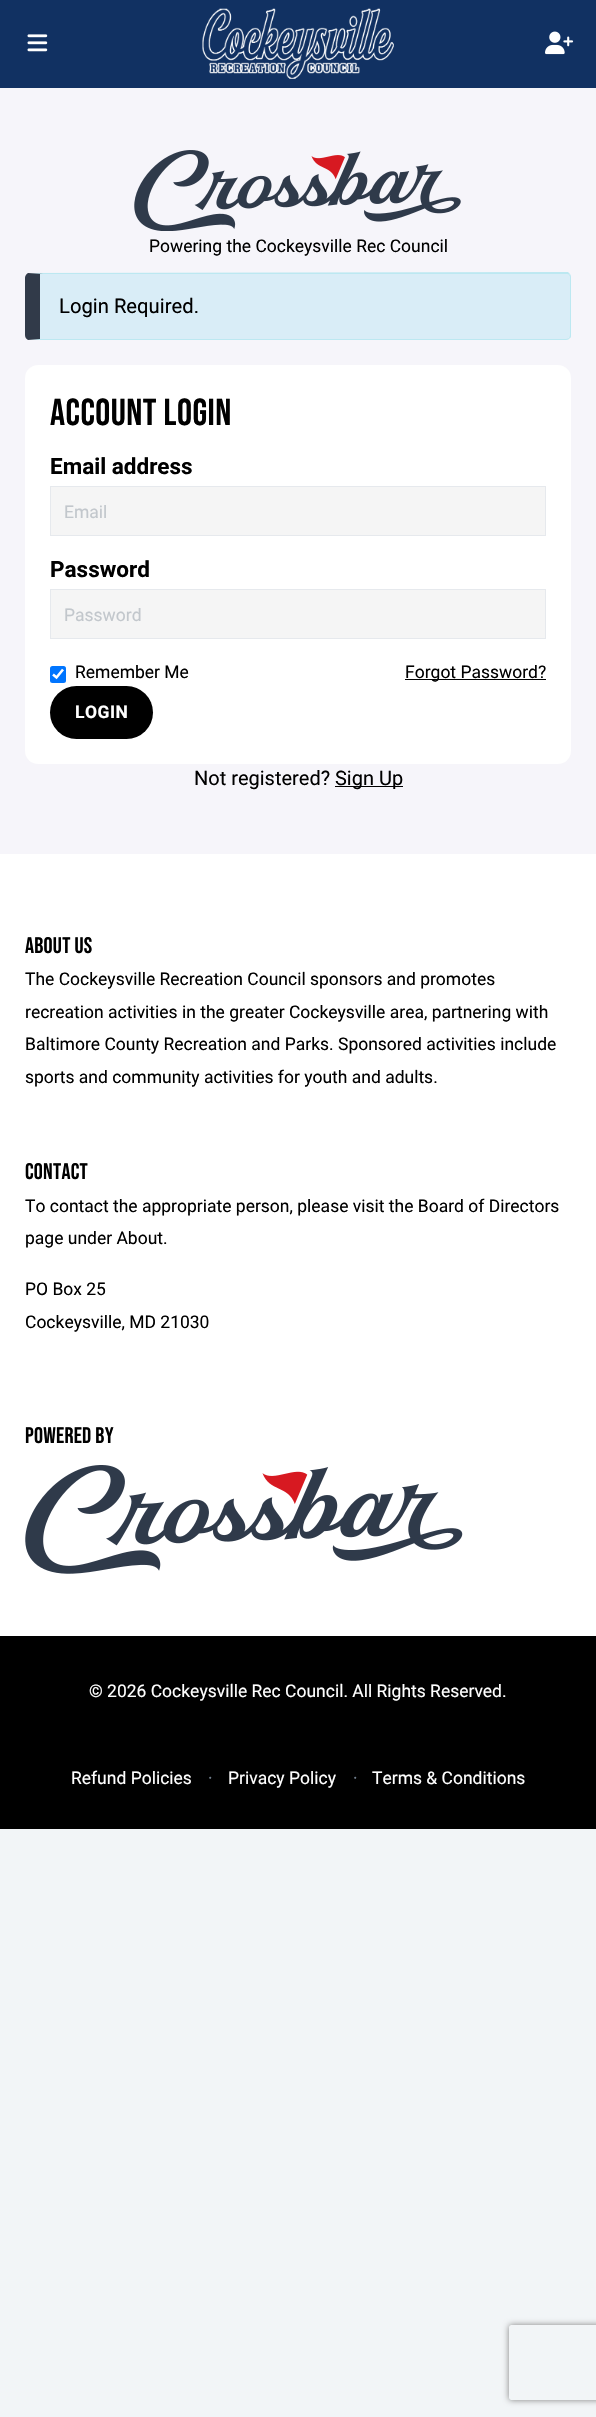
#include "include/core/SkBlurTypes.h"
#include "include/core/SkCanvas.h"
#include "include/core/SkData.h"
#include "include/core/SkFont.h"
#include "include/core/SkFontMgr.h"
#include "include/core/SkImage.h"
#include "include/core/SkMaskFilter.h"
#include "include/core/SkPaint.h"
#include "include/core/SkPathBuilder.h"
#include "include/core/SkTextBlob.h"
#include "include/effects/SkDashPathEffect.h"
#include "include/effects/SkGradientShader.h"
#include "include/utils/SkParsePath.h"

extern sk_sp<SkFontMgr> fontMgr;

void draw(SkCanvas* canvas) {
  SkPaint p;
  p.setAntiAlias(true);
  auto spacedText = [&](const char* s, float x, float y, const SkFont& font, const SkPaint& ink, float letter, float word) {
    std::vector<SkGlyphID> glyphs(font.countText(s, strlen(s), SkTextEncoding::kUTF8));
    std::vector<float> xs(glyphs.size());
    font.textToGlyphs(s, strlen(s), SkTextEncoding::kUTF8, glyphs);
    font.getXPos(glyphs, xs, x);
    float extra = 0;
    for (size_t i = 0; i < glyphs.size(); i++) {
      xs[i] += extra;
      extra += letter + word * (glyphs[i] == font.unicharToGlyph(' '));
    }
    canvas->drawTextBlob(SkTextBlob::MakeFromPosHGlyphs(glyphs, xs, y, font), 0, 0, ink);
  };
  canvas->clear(SkColorSetRGB(242, 245, 247));
  p.setColor(SkColorSetRGB(17, 49, 98));
  canvas->drawRect(SkRect::MakeLTRB(0, 0, 596, 88), p);
  canvas->drawImageRect(SkImages::DeferredFromEncodedData(SkData::MakeFromFileName("images/1.png")), SkRect::MakeLTRB(27, 34, 48, 52), SkSamplingOptions());
  canvas->drawImageRect(SkImages::DeferredFromEncodedData(SkData::MakeFromFileName("images/2.png")), SkRect::MakeLTRB(202, 8, 394, 79), SkSamplingOptions());
  canvas->drawImageRect(SkImages::DeferredFromEncodedData(SkData::MakeFromFileName("images/3.png")), SkRect::MakeLTRB(545, 31, 574, 55), SkSamplingOptions());
  p.setColor(SkColorSetRGB(246, 245, 250));
  canvas->drawRect(SkRect::MakeLTRB(0, 88, 596, 854), p);
  canvas->drawImageRect(SkImages::DeferredFromEncodedData(SkData::MakeFromFileName("images/4.png")), SkRect::MakeLTRB(134, 150, 461, 231), SkSamplingOptions());
  p.setColor(SkColorSetRGB(217, 237, 247));
  canvas->drawPath(SkPathBuilder().moveTo(40, 274).lineTo(566, 274).cubicTo(568, 274, 570, 275, 570, 278).lineTo(570, 335).cubicTo(570, 337, 568, 339, 566, 339).lineTo(40, 339).close().detach(), p);
  p.setColor(SkColorSetRGB(188, 232, 241));
  canvas->drawPath(SkPathBuilder().moveTo(28, 273).lineTo(568, 272).lineTo(570, 274).lineTo(569, 275).cubicTo(568, 274, 567, 274, 566, 274).lineTo(43, 274).close().detach(), p);
  canvas->drawPath(SkPathBuilder().moveTo(570, 274).cubicTo(571, 275, 571, 277, 571, 278).lineTo(571, 335).cubicTo(571, 336, 571, 338, 570, 338).lineTo(569, 338).lineTo(570, 335).lineTo(570, 277).lineTo(569, 275).close().detach(), p);
  canvas->drawPath(SkPathBuilder().moveTo(30, 340).lineTo(566, 340).cubicTo(568, 340, 569, 339, 570, 338).lineTo(569, 338).lineTo(566, 339).lineTo(40, 339).lineTo(28, 340).close().detach(), p);
  p.setColor(SkColorSetRGB(49, 58, 73));
  canvas->drawPath(SkPathBuilder().moveTo(40, 274).lineTo(43, 274).lineTo(28, 273).cubicTo(26, 274, 25, 276, 25, 278).lineTo(25, 335).cubicTo(25, 337, 26, 339, 28, 340).lineTo(40, 339).close().detach(), p);
  p.setColor(SK_ColorWHITE);
  canvas->drawRoundRect(SkRect::MakeLTRB(25, 365, 571, 764), 13, 13, p);
  p.setColor(SkColorSetRGB(245, 245, 245));
  canvas->drawRect(SkRect::MakeLTRB(50.5f, 486.5f, 545.5f, 535.5f), p);
  p.setStyle(SkPaint::kStroke_Style);
  p.setStrokeWidth(1);
  p.setColor(SkColorSetRGB(230, 233, 237));
  canvas->drawRect(SkRect::MakeLTRB(50.5f, 486.5f, 545.5f, 535.5f), p);
  p.setStyle(SkPaint::kFill_Style);
  p.setColor(SkColorSetRGB(245, 245, 245));
  canvas->drawRect(SkRect::MakeLTRB(50.5f, 589.5f, 545.5f, 638.5f), p);
  p.setStyle(SkPaint::kStroke_Style);
  p.setColor(SkColorSetRGB(230, 233, 237));
  canvas->drawRect(SkRect::MakeLTRB(50.5f, 589.5f, 545.5f, 638.5f), p);
  p.setStyle(SkPaint::kFill_Style);
  p.setColor(SkColorSetRGB(0, 117, 255));
  canvas->drawRoundRect(SkRect::MakeLTRB(50, 666, 66, 683), 2.5f, 2.5f, p);
  p.setStyle(SkPaint::kStroke_Style);
  p.setStrokeWidth(2.6f);
  p.setColor(SK_ColorWHITE);
  canvas->drawPath(SkPathBuilder().moveTo(53, 674.5f).lineTo(56.5f, 677.5f).lineTo(63, 669.5f).detach(), p);
  p.setStyle(SkPaint::kFill_Style);
  p.setColor(SK_ColorBLACK);
  canvas->drawRect(SkRect::MakeLTRB(405, 679, 546, 680), p);
  canvas->drawRoundRect(SkRect::MakeLTRB(50, 686, 153, 739), 26.5f, 26.5f, p);
  canvas->drawRect(SkRect::MakeLTRB(335, 786, 403, 787), p);
  p.setColor(SK_ColorWHITE);
  canvas->drawRect(SkRect::MakeLTRB(0, 854, 596, 1636), p);
  canvas->drawImageRect(SkImages::DeferredFromEncodedData(SkData::MakeFromFileName("images/5.png")), SkRect::MakeLTRB(25, 1465, 463, 1574), SkSamplingOptions());
  p.setColor(SK_ColorBLACK);
  canvas->drawRect(SkRect::MakeLTRB(0, 1636, 596, 1829), p);
  canvas->save();
  canvas->clipPath(SkPathBuilder(SkPathFillType::kEvenOdd).moveTo(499, 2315).lineTo(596, 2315).lineTo(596, 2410).lineTo(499, 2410).close().moveTo(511.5f, 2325).lineTo(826.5f, 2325).cubicTo(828, 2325, 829, 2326, 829, 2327.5f).lineTo(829, 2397.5f).cubicTo(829, 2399, 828, 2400, 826.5f, 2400).lineTo(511.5f, 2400).cubicTo(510, 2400, 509, 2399, 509, 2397.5f).lineTo(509, 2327.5f).cubicTo(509, 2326, 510, 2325, 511.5f, 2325).close().detach(), true);
  p.setColor(SkColorSetRGB(128, 128, 128));
  p.setMaskFilter(SkMaskFilter::MakeBlur(kNormal_SkBlurStyle, 3));
  canvas->drawRoundRect(SkRect::MakeLTRB(509, 2325, 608, 2400), 2.5f, 2.5f, p);
  p.setMaskFilter(nullptr);
  canvas->restore();
  SkFont font1(fontMgr->matchFamilyStyle("Roboto", SkFontStyle::Normal()), 17.5f);
  font1.setSubpixel(true);
  p.setColor(SK_ColorBLACK);
  canvas->drawString("Powering the Cockeysville Rec Council", 149, 252, font1, p);
  SkFont font2(fontMgr->matchFamilyStyle("Roboto", SkFontStyle::Normal()), 20.25f);
  font2.setSubpixel(true);
  canvas->drawString("Login Required.", 59, 313, font2, p);
  SkFont font3(fontMgr->matchFamilyStyle("Bebas Neue", SkFontStyle::Normal()), 37.5f);
  font3.setSubpixel(true);
  spacedText("ACCOUNT LOGIN", 50, 425, font3, p, 0.5f, 0);
  SkFont font4(fontMgr->matchFamilyStyle("Roboto", SkFontStyle::Bold()), 22.5f);
  font4.setSubpixel(true);
  canvas->drawString("Email address", 50, 474, font4, p);
  p.setColor(SkColorSetRGB(194, 199, 204));
  canvas->drawString("Email", 64, 518, font1, p);
  p.setColor(SK_ColorBLACK);
  canvas->drawString("Password", 50, 577, font4, p);
  p.setColor(SkColorSetRGB(194, 199, 204));
  canvas->drawString("Password", 64, 621, font1, p);
  p.setColor(SK_ColorBLACK);
  canvas->drawString("Remember Me", 75, 678, font1, p);
  canvas->drawString("Forgot Password?", 405, 678, font1, p);
  SkFont font5(fontMgr->matchFamilyStyle("Roboto", SkFontStyle::Bold()), 17.5f);
  font5.setSubpixel(true);
  p.setColor(SK_ColorWHITE);
  spacedText("LOGIN", 75, 718, font5, p, 0.5f, 0);
  SkFont font6(fontMgr->matchFamilyStyle("Roboto", SkFontStyle::Normal()), 20);
  font6.setSubpixel(true);
  p.setColor(SK_ColorBLACK);
  canvas->drawString("Not registered?", 194, 785, font6, p);
  canvas->drawString("Sign Up", 335, 785, font6, p);
  SkFont font7(fontMgr->matchFamilyStyle("Bebas Neue", SkFontStyle::Normal()), 22.5f);
  font7.setSubpixel(true);
  spacedText("ABOUT US", 25, 953, font7, p, 0.25f, 0);
  canvas->drawString("The Cockeysville Recreation Council sponsors and promotes", 25, 985, font1, p);
  canvas->drawString("recreation activities in the greater Cockeysville area, partnering with", 25, 1018, font1, p);
  canvas->drawString("Baltimore County Recreation and Parks. Sponsored activities include", 25, 1050, font1, p);
  canvas->drawString("sports and community activities for youth and adults.", 25, 1083, font1, p);
  spacedText("CONTACT", 25, 1179, font7, p, 0.25f, 0);
  canvas->drawString("To contact the appropriate person, please visit the Board of Directors", 25, 1212, font1, p);
  canvas->drawString("page under About.", 25, 1244, font1, p);
  canvas->drawString("PO Box 25", 25, 1295, font1, p);
  canvas->drawString("Cockeysville, MD 21030", 25, 1328, font1, p);
  spacedText("POWERED BY", 25, 1443, font7, p, 0.25f, 0);
  p.setColor(SK_ColorWHITE);
  canvas->drawString("© 2026 Cockeysville Rec Council. All Rights Reserved.", 89, 1697, font1, p);
  canvas->drawString("Refund Policies", 71, 1784, font1, p);
  p.setColor(SkColorSetRGB(112, 126, 140));
  canvas->drawString("·", 208, 1784, font1, p);
  p.setColor(SK_ColorWHITE);
  canvas->drawString("Privacy Policy", 228, 1784, font1, p);
  p.setColor(SkColorSetRGB(112, 126, 140));
  canvas->drawString("·", 353, 1784, font1, p);
  p.setColor(SK_ColorWHITE);
  canvas->drawString("Terms & Conditions", 372, 1784, font1, p);
}
